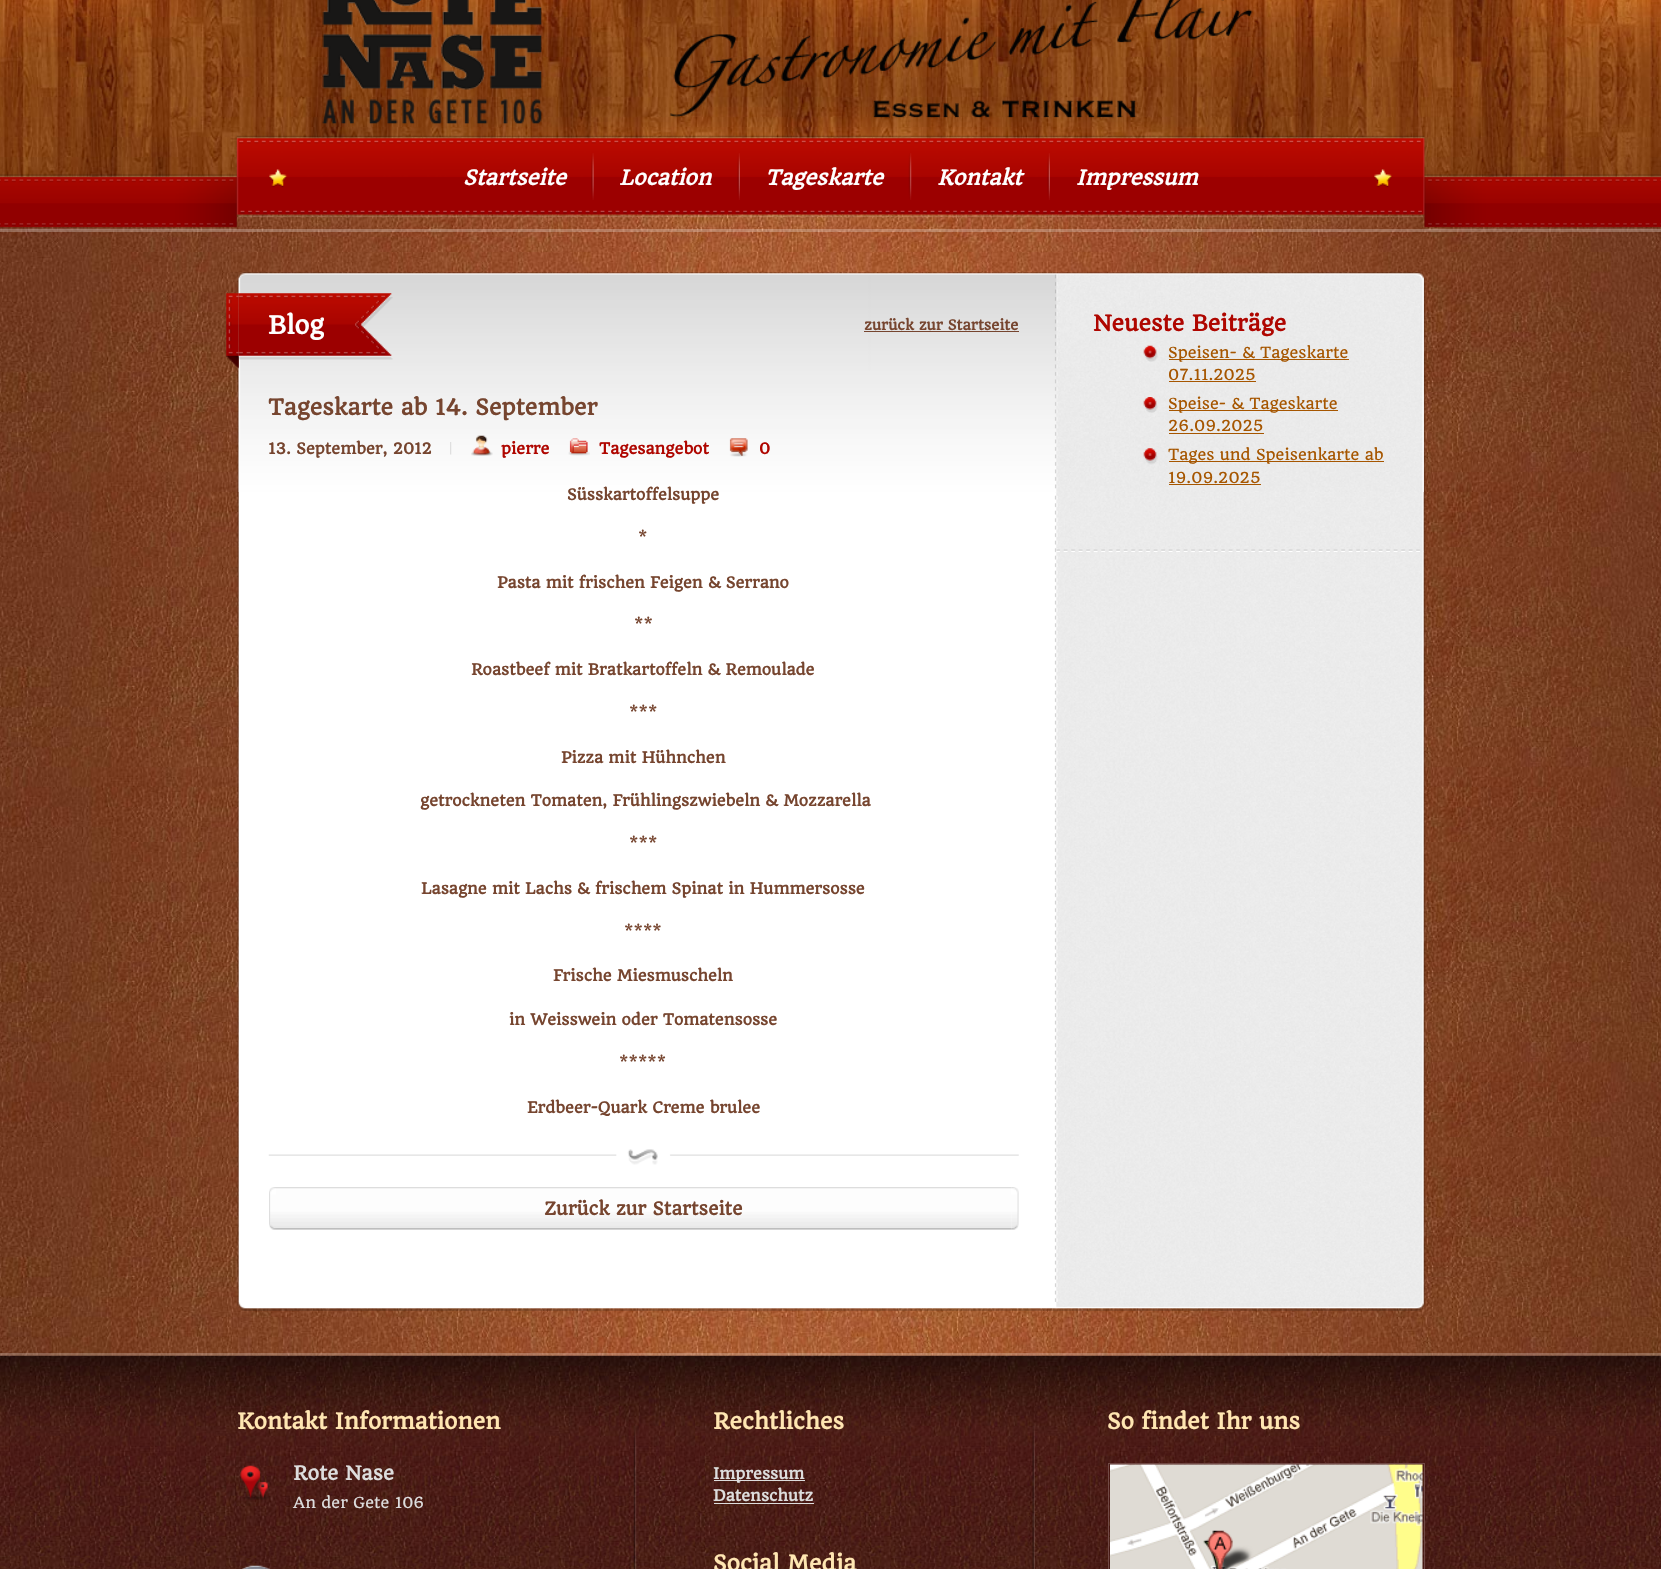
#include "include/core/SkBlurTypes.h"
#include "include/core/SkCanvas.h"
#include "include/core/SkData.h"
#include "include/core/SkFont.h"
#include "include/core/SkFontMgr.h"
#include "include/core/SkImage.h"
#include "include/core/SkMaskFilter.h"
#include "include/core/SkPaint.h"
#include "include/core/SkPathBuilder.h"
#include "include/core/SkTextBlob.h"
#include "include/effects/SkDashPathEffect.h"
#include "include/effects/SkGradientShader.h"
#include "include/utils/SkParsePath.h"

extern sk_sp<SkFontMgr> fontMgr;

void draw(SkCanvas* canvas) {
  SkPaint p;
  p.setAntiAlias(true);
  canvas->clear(SK_ColorWHITE);
  canvas->drawImageRect(SkImages::DeferredFromEncodedData(SkData::MakeFromFileName("images/1.png")), SkRect::MakeLTRB(0, 177, 1661, 1356), SkSamplingOptions());
  canvas->drawImageRect(SkImages::DeferredFromEncodedData(SkData::MakeFromFileName("images/2.png")), SkRect::MakeLTRB(0, 0, 1661, 177), SkSamplingOptions());
  canvas->drawImageRect(SkImages::DeferredFromEncodedData(SkData::MakeFromFileName("images/3.png")), SkRect::MakeLTRB(322, 0, 1253, 124), SkSamplingOptions());
  p.setColor(SkColorSetARGB(66, 255, 255, 255));
  canvas->drawRect(SkRect::MakeLTRB(0, 229, 1661, 232), p);
  canvas->drawImageRect(SkImages::DeferredFromEncodedData(SkData::MakeFromFileName("images/4.png")), SkRect::MakeLTRB(0, 135, 1661, 230), SkSamplingOptions());
  canvas->drawImageRect(SkImages::DeferredFromEncodedData(SkData::MakeFromFileName("images/5.png")), SkRect::MakeLTRB(591, 153, 594, 200), SkSamplingOptions());
  canvas->drawImageRect(SkImages::DeferredFromEncodedData(SkData::MakeFromFileName("images/6.png")), SkRect::MakeLTRB(737, 153, 740, 200), SkSamplingOptions());
  canvas->drawImageRect(SkImages::DeferredFromEncodedData(SkData::MakeFromFileName("images/7.png")), SkRect::MakeLTRB(908, 153, 912, 200), SkSamplingOptions());
  canvas->drawImageRect(SkImages::DeferredFromEncodedData(SkData::MakeFromFileName("images/6.png")), SkRect::MakeLTRB(1047, 153, 1050, 200), SkSamplingOptions());
  canvas->drawImageRect(SkImages::DeferredFromEncodedData(SkData::MakeFromFileName("images/9.png")), SkRect::MakeLTRB(237, 278, 1425, 1302), SkSamplingOptions());
  canvas->drawImageRect(SkImages::DeferredFromEncodedData(SkData::MakeFromFileName("images/8.png")), SkRect::MakeLTRB(238, 272, 1424, 492), SkSamplingOptions());
  canvas->drawImageRect(SkImages::DeferredFromEncodedData(SkData::MakeFromFileName("images/10.png")), SkRect::MakeLTRB(226, 293, 239, 369), SkSamplingOptions());
  canvas->drawImageRect(SkImages::DeferredFromEncodedData(SkData::MakeFromFileName("images/11.png")), SkRect::MakeLTRB(238, 293, 393, 360), SkSamplingOptions());
  p.setColor(SkColorSetRGB(118, 69, 47));
  canvas->drawRect(SkRect::MakeLTRB(864, 331, 1019, 332), p);
  canvas->drawImageRect(SkImages::DeferredFromEncodedData(SkData::MakeFromFileName("images/12.png")), SkRect::MakeLTRB(268, 1149, 1019, 1165), SkSamplingOptions());
  canvas->drawImageRect(SkImages::DeferredFromEncodedData(SkData::MakeFromFileName("images/13.png")), SkRect::MakeLTRB(450, 442, 452, 455), SkSamplingOptions());
  canvas->drawImageRect(SkImages::DeferredFromEncodedData(SkData::MakeFromFileName("images/14.png")), SkRect::MakeLTRB(471, 435, 493, 456), SkSamplingOptions());
  canvas->drawImageRect(SkImages::DeferredFromEncodedData(SkData::MakeFromFileName("images/15.png")), SkRect::MakeLTRB(568, 438, 590, 456), SkSamplingOptions());
  canvas->drawImageRect(SkImages::DeferredFromEncodedData(SkData::MakeFromFileName("images/16.png")), SkRect::MakeLTRB(729, 438, 748, 457), SkSamplingOptions());
  canvas->drawImageRect(SkImages::DeferredFromEncodedData(SkData::MakeFromFileName("images/17.png")), SkRect::MakeLTRB(1011, 1187, 1019, 1230), SkSamplingOptions());
  canvas->drawImageRect(SkImages::DeferredFromEncodedData(SkData::MakeFromFileName("images/18.png")), SkRect::MakeLTRB(269, 1187, 1012, 1230), SkSamplingOptions());
  canvas->drawImageRect(SkImages::DeferredFromEncodedData(SkData::MakeFromFileName("images/19.png")), SkRect::MakeLTRB(1056, 549, 1424, 552), SkSamplingOptions());
  canvas->drawImageRect(SkImages::DeferredFromEncodedData(SkData::MakeFromFileName("images/20.png")), SkRect::MakeLTRB(1143, 345, 1158, 362), SkSamplingOptions());
  p.setColor(SkColorSetRGB(166, 86, 0));
  canvas->drawRect(SkRect::MakeLTRB(1169, 359, 1349, 360), p);
  canvas->drawRect(SkRect::MakeLTRB(1169, 381, 1256, 382), p);
  canvas->drawImageRect(SkImages::DeferredFromEncodedData(SkData::MakeFromFileName("images/21.png")), SkRect::MakeLTRB(1143, 397, 1158, 413), SkSamplingOptions());
  canvas->drawRect(SkRect::MakeLTRB(1169, 410, 1338, 411), p);
  canvas->drawRect(SkRect::MakeLTRB(1169, 433, 1264, 434), p);
  canvas->drawImageRect(SkImages::DeferredFromEncodedData(SkData::MakeFromFileName("images/22.png")), SkRect::MakeLTRB(1143, 448, 1158, 465), SkSamplingOptions());
  canvas->drawRect(SkRect::MakeLTRB(1169, 461, 1384, 462), p);
  canvas->drawRect(SkRect::MakeLTRB(1169, 484, 1261, 485), p);
  canvas->drawImageRect(SkImages::DeferredFromEncodedData(SkData::MakeFromFileName("images/23.png")), SkRect::MakeLTRB(237, 1302, 1425, 1311), SkSamplingOptions());
  p.setColor(SkColorSetARGB(56, 255, 255, 255));
  canvas->drawRect(SkRect::MakeLTRB(0, 1353, 1661, 1356), p);
  canvas->drawImageRect(SkImages::DeferredFromEncodedData(SkData::MakeFromFileName("images/24.png")), SkRect::MakeLTRB(0, 1355, 1661, 1569), SkSamplingOptions());
  canvas->drawImageRect(SkImages::DeferredFromEncodedData(SkData::MakeFromFileName("images/25.png")), SkRect::MakeLTRB(633, 1424, 637, 1569), SkSamplingOptions());
  canvas->drawImageRect(SkImages::DeferredFromEncodedData(SkData::MakeFromFileName("images/26.png")), SkRect::MakeLTRB(240, 1465, 270, 1500), SkSamplingOptions());
  canvas->drawImageRect(SkImages::DeferredFromEncodedData(SkData::MakeFromFileName("images/27.png")), SkRect::MakeLTRB(242, 1565, 270, 1569), SkSamplingOptions());
  canvas->drawImageRect(SkImages::DeferredFromEncodedData(SkData::MakeFromFileName("images/28.png")), SkRect::MakeLTRB(1032, 1423, 1035, 1569), SkSamplingOptions());
  p.setColor(SkColorSetRGB(221, 221, 221));
  canvas->drawRect(SkRect::MakeLTRB(714, 1480, 805, 1481), p);
  canvas->drawRect(SkRect::MakeLTRB(714, 1503, 814, 1504), p);
  p.setStyle(SkPaint::kStroke_Style);
  p.setStrokeWidth(1);
  p.setColor(SkColorSetRGB(113, 73, 69));
  canvas->drawRect(SkRect::MakeLTRB(1108.5f, 1463.5f, 1424.5f, 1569.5f), p);
  canvas->drawImageRect(SkImages::DeferredFromEncodedData(SkData::MakeFromFileName("images/29.png")), SkRect::MakeLTRB(1110, 1464, 1423, 1569), SkSamplingOptions());
  SkFont font1(fontMgr->matchFamilyStyle("Quando", SkFontStyle::BoldItalic()), 20);
  font1.setSubpixel(true);
  p.setStyle(SkPaint::kFill_Style);
  p.setColor(SK_ColorWHITE);
  canvas->drawString("Startseite", 463, 185, font1, p);
  canvas->drawString("Location", 619, 185, font1, p);
  canvas->drawString("Tageskarte", 765, 185, font1, p);
  canvas->drawString("Kontakt", 937, 185, font1, p);
  canvas->drawString("Impressum", 1076, 185, font1, p);
  SkFont font2(fontMgr->matchFamilyStyle("Quando", SkFontStyle::Bold()), 24);
  font2.setSubpixel(true);
  canvas->drawString("Blog", 268, 334, font2, p);
  SkFont font3(fontMgr->matchFamilyStyle("Quando", SkFontStyle::Bold()), 13.75f);
  font3.setSubpixel(true);
  p.setColor(SkColorSetRGB(118, 69, 47));
  canvas->drawString("zurück zur Startseite", 864, 330, font3, p);
  SkFont font4(fontMgr->matchFamilyStyle("Quando", SkFontStyle::Bold()), 21.25f);
  font4.setSubpixel(true);
  canvas->drawString("Tageskarte ab 14. September", 268, 415, font4, p);
  SkFont font5(fontMgr->matchFamilyStyle("Quando", SkFontStyle::Bold()), 15);
  font5.setSubpixel(true);
  canvas->drawString("13. September, 2012", 268, 454, font5, p);
  p.setColor(SkColorSetRGB(175, 6, 0));
  canvas->drawString("pierre", 501, 454, font5, p);
  canvas->drawString("Tagesangebot", 599, 454, font5, p);
  canvas->drawString("0", 759, 454, font5, p);
  p.setColor(SkColorSetRGB(118, 69, 47));
  canvas->drawString("Süsskartoffelsuppe", 567, 500, font5, p);
  SkFont font6(fontMgr->matchFamilyStyle("Quando", SkFontStyle::Normal()), 15);
  font6.setSubpixel(true);
  canvas->drawString("*", 638, 544, font6, p);
  canvas->drawString("Pasta mit frischen Feigen & Serrano", 497, 588, font5, p);
  canvas->drawString("**", 634, 631, font6, p);
  canvas->drawString("Roastbeef mit Bratkartoffeln & Remoulade", 471, 675, font5, p);
  canvas->drawString("***", 629, 719, font6, p);
  canvas->drawString("Pizza mit Hühnchen", 561, 763, font5, p);
  canvas->drawString("getrockneten Tomaten, Frühlingszwiebeln & Mozzarella", 420, 806, font5, p);
  canvas->drawString("***", 629, 850, font6, p);
  canvas->drawString("Lasagne mit Lachs & frischem Spinat in Hummersosse", 421, 894, font5, p);
  canvas->drawString("****", 624, 938, font6, p);
  canvas->drawString("Frische Miesmuscheln", 553, 981, font5, p);
  canvas->drawString("in Weisswein oder Tomatensosse", 509, 1025, font5, p);
  canvas->drawString("*****", 619, 1069, font6, p);
  canvas->drawString("Erdbeer-Quark Creme brulee", 527, 1113, font5, p);
  SkFont font7(fontMgr->matchFamilyStyle("Quando", SkFontStyle::Bold()), 17.5f);
  font7.setSubpixel(true);
  canvas->drawString("Zurück zur Startseite", 544, 1215, font7, p);
  p.setColor(SkColorSetRGB(175, 6, 0));
  canvas->drawString("Neueste Beiträge", 1093, 331, font4, p);
  p.setColor(SkColorSetRGB(166, 86, 0));
  canvas->drawString("Speisen- & Tageskarte", 1168, 358, font6, p);
  canvas->drawString("07.11.2025", 1168, 380, font6, p);
  canvas->drawString("Speise- & Tageskarte", 1168, 409, font6, p);
  canvas->drawString("26.09.2025", 1168, 431, font6, p);
  canvas->drawString("Tages und Speisenkarte ab", 1168, 460, font6, p);
  canvas->drawString("19.09.2025", 1168, 483, font6, p);
  p.setColor(SkColorSetRGB(255, 230, 178));
  canvas->drawString("Kontakt Informationen", 237, 1429, font4, p);
  SkFont font8(fontMgr->matchFamilyStyle("Quando", SkFontStyle::Bold()), 18.75f);
  font8.setSubpixel(true);
  p.setColor(SkColorSetRGB(221, 221, 221));
  canvas->drawString("Rote Nase", 293, 1480, font8, p);
  canvas->drawString("An der Gete 106", 293, 1508, font6, p);
  p.setColor(SkColorSetRGB(255, 230, 178));
  canvas->drawString("Rechtliches", 713, 1429, font4, p);
  p.setColor(SkColorSetRGB(221, 221, 221));
  canvas->drawString("Impressum", 713, 1479, font5, p);
  canvas->drawString("Datenschutz", 713, 1501, font5, p);
  p.setColor(SkColorSetRGB(255, 230, 178));
  canvas->drawString("Social Media", 713, 1571, font4, p);
  canvas->drawString("So findet Ihr uns", 1107, 1429, font4, p);
}
